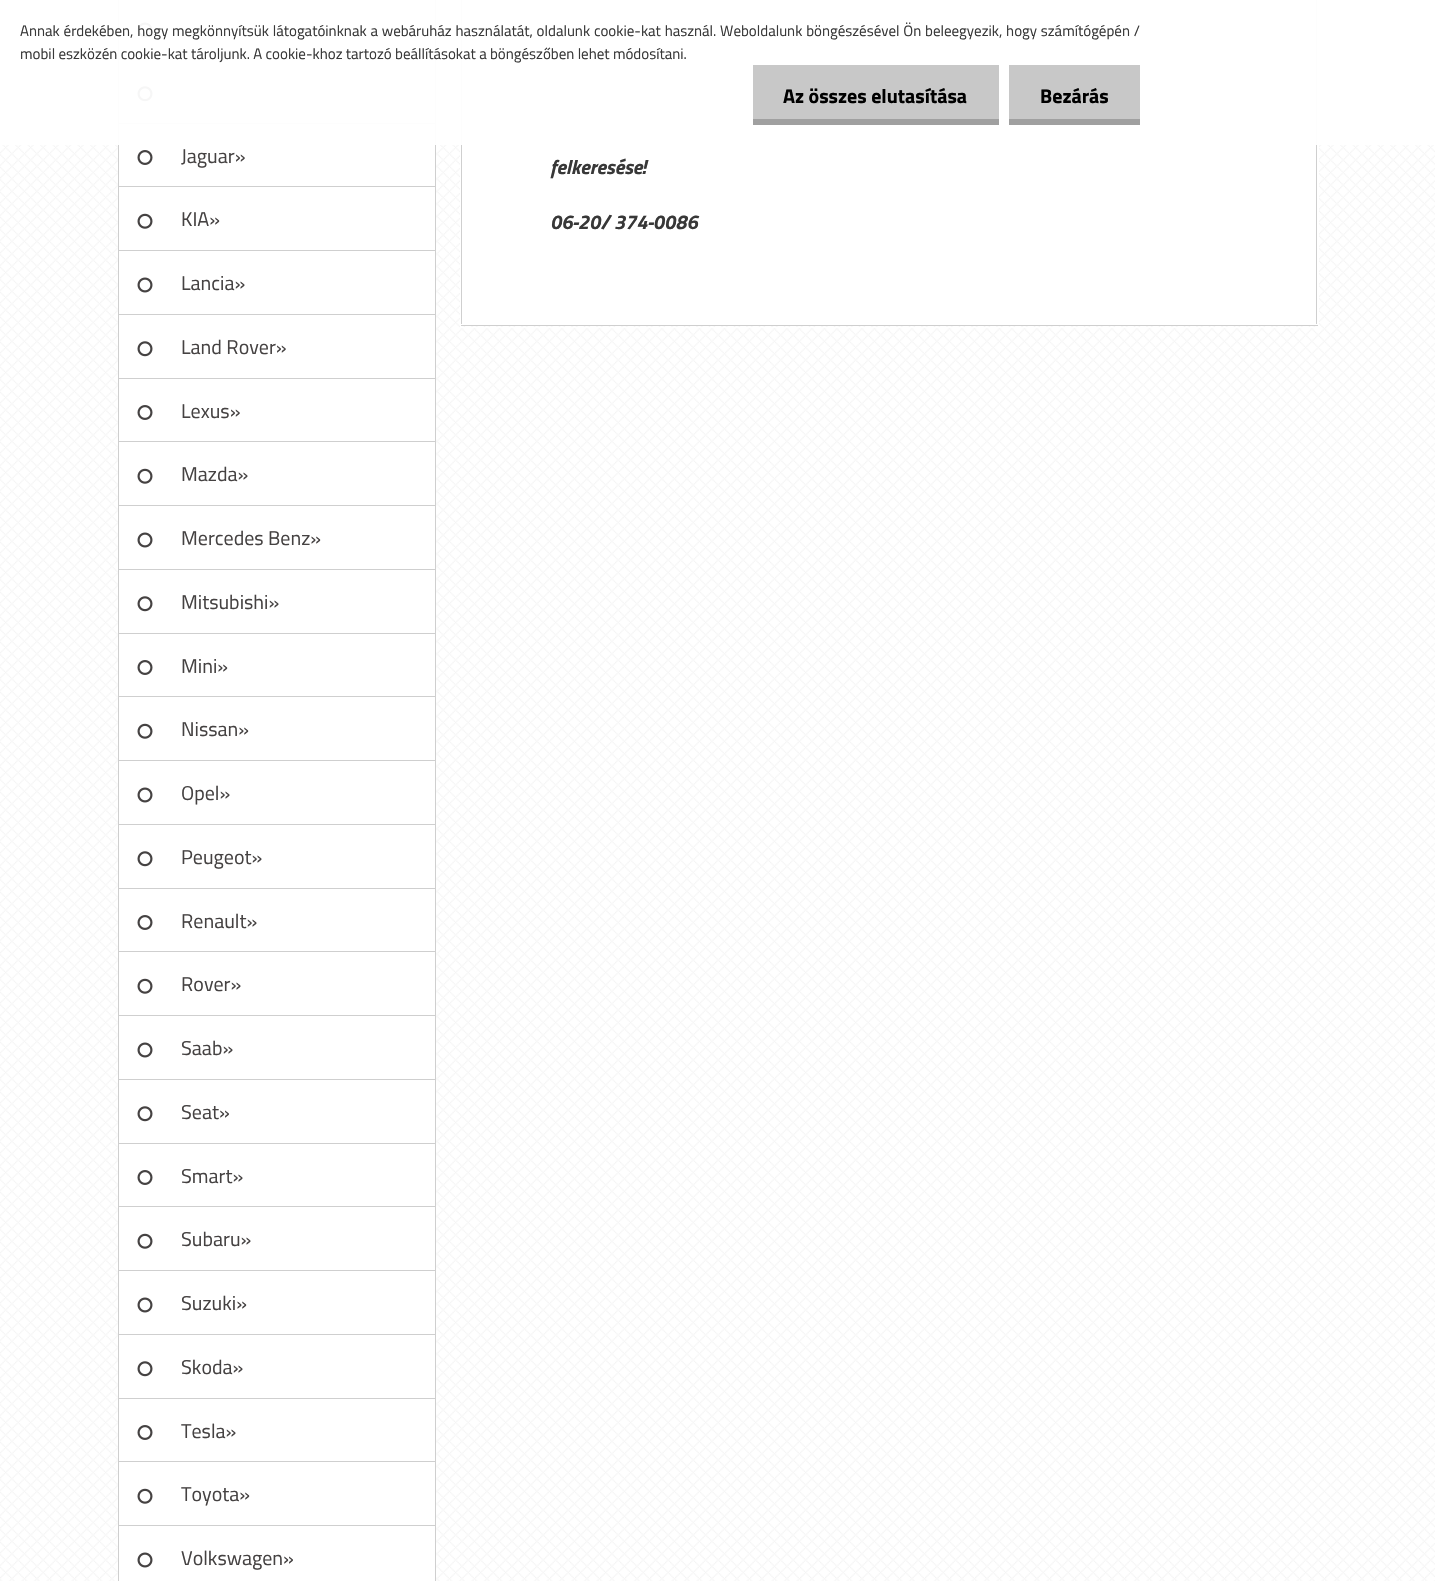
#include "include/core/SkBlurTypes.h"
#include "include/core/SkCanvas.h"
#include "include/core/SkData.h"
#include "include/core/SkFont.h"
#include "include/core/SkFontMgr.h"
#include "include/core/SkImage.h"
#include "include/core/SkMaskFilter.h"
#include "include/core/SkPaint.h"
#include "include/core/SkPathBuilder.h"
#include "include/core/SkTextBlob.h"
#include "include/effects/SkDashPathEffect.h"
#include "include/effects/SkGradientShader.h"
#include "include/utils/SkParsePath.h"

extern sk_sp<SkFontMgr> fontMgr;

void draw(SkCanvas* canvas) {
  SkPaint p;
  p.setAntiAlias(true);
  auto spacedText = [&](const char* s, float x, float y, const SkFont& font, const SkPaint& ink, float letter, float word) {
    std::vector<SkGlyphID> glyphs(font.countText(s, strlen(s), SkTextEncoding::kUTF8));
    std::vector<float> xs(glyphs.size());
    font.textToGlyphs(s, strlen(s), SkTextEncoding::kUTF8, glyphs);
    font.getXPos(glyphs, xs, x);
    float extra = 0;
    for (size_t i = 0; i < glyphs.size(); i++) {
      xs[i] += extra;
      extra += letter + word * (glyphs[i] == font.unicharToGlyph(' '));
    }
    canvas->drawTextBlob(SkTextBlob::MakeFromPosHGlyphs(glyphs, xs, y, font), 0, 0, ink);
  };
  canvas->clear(SK_ColorWHITE);
  canvas->drawImageRect(SkImages::DeferredFromEncodedData(SkData::MakeFromFileName("images/1.png")), SkRect::MakeLTRB(0, 0, 1435, 1581), SkSamplingOptions());
  p.setColor(SK_ColorWHITE);
  canvas->drawRect(SkRect::MakeLTRB(119, 0, 435, 59), p);
  p.setColor(SkColorSetRGB(207, 207, 207));
  canvas->drawRect(SkRect::MakeLTRB(435, 0, 436, 1581), p);
  canvas->drawRect(SkRect::MakeLTRB(118, 59, 436, 60), p);
  canvas->drawRect(SkRect::MakeLTRB(118, 0, 119, 60), p);
  canvas->drawImageRect(SkImages::DeferredFromEncodedData(SkData::MakeFromFileName("images/2.png")), SkRect::MakeLTRB(137, 22, 153, 38), SkSamplingOptions());
  p.setColor(SK_ColorWHITE);
  canvas->drawRect(SkRect::MakeLTRB(119, 60, 435, 123), p);
  p.setColor(SkColorSetRGB(207, 207, 207));
  canvas->drawRect(SkRect::MakeLTRB(118, 123, 436, 124), p);
  canvas->drawRect(SkRect::MakeLTRB(118, 60, 119, 124), p);
  canvas->drawImageRect(SkImages::DeferredFromEncodedData(SkData::MakeFromFileName("images/3.png")), SkRect::MakeLTRB(137, 86, 153, 102), SkSamplingOptions());
  p.setColor(SK_ColorWHITE);
  canvas->drawRect(SkRect::MakeLTRB(119, 124, 435, 250), p);
  p.setColor(SkColorSetRGB(207, 207, 207));
  canvas->drawRect(SkRect::MakeLTRB(118, 186, 436, 187), p);
  canvas->drawRect(SkRect::MakeLTRB(118, 124, 119, 188), p);
  p.setStyle(SkPaint::kStroke_Style);
  p.setStrokeWidth(1);
  p.setColor(SK_ColorWHITE);
  canvas->drawRect(SkRect::MakeLTRB(460.5f, -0.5f, 1318.5f, 325.5f), p);
  p.setStyle(SkPaint::kFill_Style);
  canvas->drawRect(SkRect::MakeLTRB(462, 0, 1318, 324), p);
  p.setColor(SkColorSetRGB(207, 207, 207));
  canvas->drawRect(SkRect::MakeLTRB(1316, 0, 1317, 325), p);
  canvas->drawRect(SkRect::MakeLTRB(461, 0, 462, 325), p);
  p.setColor(SkColorSetARGB(242, 255, 255, 255));
  canvas->drawRect(SkRect::MakeLTRB(0, 0, 1435, 145), p);
  p.setColor(SkColorSetRGB(200, 200, 200));
  canvas->drawRect(SkRect::MakeLTRB(753, 65, 999, 119), p);
  p.setColor(SkColorSetRGB(160, 160, 160));
  canvas->drawRect(SkRect::MakeLTRB(753, 119, 999, 125), p);
  p.setColor(SkColorSetRGB(200, 200, 200));
  canvas->drawRect(SkRect::MakeLTRB(1009, 65, 1140, 119), p);
  p.setColor(SkColorSetRGB(160, 160, 160));
  canvas->drawRect(SkRect::MakeLTRB(1009, 119, 1140, 125), p);
  canvas->drawImageRect(SkImages::DeferredFromEncodedData(SkData::MakeFromFileName("images/4.png")), SkRect::MakeLTRB(137, 150, 153, 165), SkSamplingOptions());
  p.setColor(SkColorSetRGB(207, 207, 207));
  canvas->drawRect(SkRect::MakeLTRB(118, 250, 436, 251), p);
  canvas->drawRect(SkRect::MakeLTRB(118, 188, 119, 251), p);
  canvas->drawImageRect(SkImages::DeferredFromEncodedData(SkData::MakeFromFileName("images/5.png")), SkRect::MakeLTRB(137, 213, 153, 229), SkSamplingOptions());
  p.setColor(SK_ColorWHITE);
  canvas->drawRect(SkRect::MakeLTRB(119, 251, 435, 314), p);
  p.setColor(SkColorSetRGB(207, 207, 207));
  canvas->drawRect(SkRect::MakeLTRB(118, 314, 436, 315), p);
  canvas->drawRect(SkRect::MakeLTRB(118, 251, 119, 315), p);
  canvas->drawImageRect(SkImages::DeferredFromEncodedData(SkData::MakeFromFileName("images/2.png")), SkRect::MakeLTRB(137, 277, 153, 293), SkSamplingOptions());
  p.setColor(SK_ColorWHITE);
  canvas->drawRect(SkRect::MakeLTRB(119, 315, 435, 378), p);
  p.setColor(SkColorSetRGB(207, 207, 207));
  canvas->drawRect(SkRect::MakeLTRB(118, 378, 436, 379), p);
  canvas->drawRect(SkRect::MakeLTRB(118, 315, 119, 379), p);
  canvas->drawImageRect(SkImages::DeferredFromEncodedData(SkData::MakeFromFileName("images/3.png")), SkRect::MakeLTRB(137, 341, 153, 357), SkSamplingOptions());
  p.setColor(SK_ColorWHITE);
  canvas->drawRect(SkRect::MakeLTRB(119, 379, 435, 505), p);
  p.setColor(SkColorSetRGB(207, 207, 207));
  canvas->drawRect(SkRect::MakeLTRB(118, 441, 436, 442), p);
  canvas->drawRect(SkRect::MakeLTRB(118, 379, 119, 443), p);
  canvas->drawImageRect(SkImages::DeferredFromEncodedData(SkData::MakeFromFileName("images/4.png")), SkRect::MakeLTRB(137, 405, 153, 420), SkSamplingOptions());
  canvas->drawRect(SkRect::MakeLTRB(118, 505, 436, 506), p);
  canvas->drawRect(SkRect::MakeLTRB(118, 443, 119, 506), p);
  canvas->drawImageRect(SkImages::DeferredFromEncodedData(SkData::MakeFromFileName("images/5.png")), SkRect::MakeLTRB(137, 468, 153, 484), SkSamplingOptions());
  p.setColor(SK_ColorWHITE);
  canvas->drawRect(SkRect::MakeLTRB(119, 506, 435, 569), p);
  p.setColor(SkColorSetRGB(207, 207, 207));
  canvas->drawRect(SkRect::MakeLTRB(118, 569, 436, 570), p);
  canvas->drawRect(SkRect::MakeLTRB(118, 506, 119, 570), p);
  canvas->drawImageRect(SkImages::DeferredFromEncodedData(SkData::MakeFromFileName("images/2.png")), SkRect::MakeLTRB(137, 532, 153, 548), SkSamplingOptions());
  p.setColor(SK_ColorWHITE);
  canvas->drawRect(SkRect::MakeLTRB(119, 570, 435, 633), p);
  p.setColor(SkColorSetRGB(207, 207, 207));
  canvas->drawRect(SkRect::MakeLTRB(118, 633, 436, 634), p);
  canvas->drawRect(SkRect::MakeLTRB(118, 570, 119, 634), p);
  canvas->drawImageRect(SkImages::DeferredFromEncodedData(SkData::MakeFromFileName("images/3.png")), SkRect::MakeLTRB(137, 596, 153, 612), SkSamplingOptions());
  p.setColor(SK_ColorWHITE);
  canvas->drawRect(SkRect::MakeLTRB(119, 634, 435, 760), p);
  p.setColor(SkColorSetRGB(207, 207, 207));
  canvas->drawRect(SkRect::MakeLTRB(118, 696, 436, 697), p);
  canvas->drawRect(SkRect::MakeLTRB(118, 634, 119, 698), p);
  canvas->drawImageRect(SkImages::DeferredFromEncodedData(SkData::MakeFromFileName("images/4.png")), SkRect::MakeLTRB(137, 660, 153, 675), SkSamplingOptions());
  canvas->drawRect(SkRect::MakeLTRB(118, 760, 436, 761), p);
  canvas->drawRect(SkRect::MakeLTRB(118, 698, 119, 761), p);
  canvas->drawImageRect(SkImages::DeferredFromEncodedData(SkData::MakeFromFileName("images/5.png")), SkRect::MakeLTRB(137, 723, 153, 739), SkSamplingOptions());
  p.setColor(SK_ColorWHITE);
  canvas->drawRect(SkRect::MakeLTRB(119, 761, 435, 824), p);
  p.setColor(SkColorSetRGB(207, 207, 207));
  canvas->drawRect(SkRect::MakeLTRB(118, 824, 436, 825), p);
  canvas->drawRect(SkRect::MakeLTRB(118, 761, 119, 825), p);
  canvas->drawImageRect(SkImages::DeferredFromEncodedData(SkData::MakeFromFileName("images/2.png")), SkRect::MakeLTRB(137, 787, 153, 803), SkSamplingOptions());
  p.setColor(SK_ColorWHITE);
  canvas->drawRect(SkRect::MakeLTRB(119, 825, 435, 888), p);
  p.setColor(SkColorSetRGB(207, 207, 207));
  canvas->drawRect(SkRect::MakeLTRB(118, 888, 436, 889), p);
  canvas->drawRect(SkRect::MakeLTRB(118, 825, 119, 889), p);
  canvas->drawImageRect(SkImages::DeferredFromEncodedData(SkData::MakeFromFileName("images/3.png")), SkRect::MakeLTRB(137, 851, 153, 867), SkSamplingOptions());
  p.setColor(SK_ColorWHITE);
  canvas->drawRect(SkRect::MakeLTRB(119, 889, 435, 1015), p);
  p.setColor(SkColorSetRGB(207, 207, 207));
  canvas->drawRect(SkRect::MakeLTRB(118, 951, 436, 952), p);
  canvas->drawRect(SkRect::MakeLTRB(118, 889, 119, 953), p);
  canvas->drawImageRect(SkImages::DeferredFromEncodedData(SkData::MakeFromFileName("images/4.png")), SkRect::MakeLTRB(137, 915, 153, 930), SkSamplingOptions());
  canvas->drawRect(SkRect::MakeLTRB(118, 1015, 436, 1016), p);
  canvas->drawRect(SkRect::MakeLTRB(118, 953, 119, 1016), p);
  canvas->drawImageRect(SkImages::DeferredFromEncodedData(SkData::MakeFromFileName("images/5.png")), SkRect::MakeLTRB(137, 978, 153, 994), SkSamplingOptions());
  p.setColor(SK_ColorWHITE);
  canvas->drawRect(SkRect::MakeLTRB(119, 1016, 435, 1079), p);
  p.setColor(SkColorSetRGB(207, 207, 207));
  canvas->drawRect(SkRect::MakeLTRB(118, 1079, 436, 1080), p);
  canvas->drawRect(SkRect::MakeLTRB(118, 1016, 119, 1080), p);
  canvas->drawImageRect(SkImages::DeferredFromEncodedData(SkData::MakeFromFileName("images/2.png")), SkRect::MakeLTRB(137, 1042, 153, 1058), SkSamplingOptions());
  p.setColor(SK_ColorWHITE);
  canvas->drawRect(SkRect::MakeLTRB(119, 1080, 435, 1143), p);
  p.setColor(SkColorSetRGB(207, 207, 207));
  canvas->drawRect(SkRect::MakeLTRB(118, 1143, 436, 1144), p);
  canvas->drawRect(SkRect::MakeLTRB(118, 1080, 119, 1144), p);
  canvas->drawImageRect(SkImages::DeferredFromEncodedData(SkData::MakeFromFileName("images/3.png")), SkRect::MakeLTRB(137, 1106, 153, 1122), SkSamplingOptions());
  p.setColor(SK_ColorWHITE);
  canvas->drawRect(SkRect::MakeLTRB(119, 1144, 435, 1270), p);
  p.setColor(SkColorSetRGB(207, 207, 207));
  canvas->drawRect(SkRect::MakeLTRB(118, 1206, 436, 1207), p);
  canvas->drawRect(SkRect::MakeLTRB(118, 1144, 119, 1208), p);
  canvas->drawImageRect(SkImages::DeferredFromEncodedData(SkData::MakeFromFileName("images/4.png")), SkRect::MakeLTRB(137, 1170, 153, 1185), SkSamplingOptions());
  canvas->drawRect(SkRect::MakeLTRB(118, 1270, 436, 1271), p);
  canvas->drawRect(SkRect::MakeLTRB(118, 1208, 119, 1271), p);
  canvas->drawImageRect(SkImages::DeferredFromEncodedData(SkData::MakeFromFileName("images/5.png")), SkRect::MakeLTRB(137, 1233, 153, 1249), SkSamplingOptions());
  p.setColor(SK_ColorWHITE);
  canvas->drawRect(SkRect::MakeLTRB(119, 1271, 435, 1334), p);
  p.setColor(SkColorSetRGB(207, 207, 207));
  canvas->drawRect(SkRect::MakeLTRB(118, 1334, 436, 1335), p);
  canvas->drawRect(SkRect::MakeLTRB(118, 1271, 119, 1335), p);
  canvas->drawImageRect(SkImages::DeferredFromEncodedData(SkData::MakeFromFileName("images/2.png")), SkRect::MakeLTRB(137, 1297, 153, 1313), SkSamplingOptions());
  p.setColor(SK_ColorWHITE);
  canvas->drawRect(SkRect::MakeLTRB(119, 1335, 435, 1398), p);
  p.setColor(SkColorSetRGB(207, 207, 207));
  canvas->drawRect(SkRect::MakeLTRB(118, 1398, 436, 1399), p);
  canvas->drawRect(SkRect::MakeLTRB(118, 1335, 119, 1399), p);
  canvas->drawImageRect(SkImages::DeferredFromEncodedData(SkData::MakeFromFileName("images/3.png")), SkRect::MakeLTRB(137, 1361, 153, 1377), SkSamplingOptions());
  p.setColor(SK_ColorWHITE);
  canvas->drawRect(SkRect::MakeLTRB(119, 1399, 435, 1525), p);
  p.setColor(SkColorSetRGB(207, 207, 207));
  canvas->drawRect(SkRect::MakeLTRB(118, 1461, 436, 1462), p);
  canvas->drawRect(SkRect::MakeLTRB(118, 1399, 119, 1463), p);
  canvas->drawImageRect(SkImages::DeferredFromEncodedData(SkData::MakeFromFileName("images/4.png")), SkRect::MakeLTRB(137, 1425, 153, 1440), SkSamplingOptions());
  canvas->drawRect(SkRect::MakeLTRB(118, 1525, 436, 1526), p);
  canvas->drawRect(SkRect::MakeLTRB(118, 1463, 119, 1581), p);
  canvas->drawImageRect(SkImages::DeferredFromEncodedData(SkData::MakeFromFileName("images/5.png")), SkRect::MakeLTRB(137, 1488, 153, 1504), SkSamplingOptions());
  p.setColor(SK_ColorWHITE);
  canvas->drawRect(SkRect::MakeLTRB(119, 1526, 435, 1581), p);
  canvas->drawImageRect(SkImages::DeferredFromEncodedData(SkData::MakeFromFileName("images/2.png")), SkRect::MakeLTRB(137, 1552, 153, 1568), SkSamplingOptions());
  p.setStyle(SkPaint::kStroke_Style);
  canvas->drawRect(SkRect::MakeLTRB(460.5f, 324.5f, 1318.5f, 327.5f), p);
  p.setStyle(SkPaint::kFill_Style);
  p.setColor(SkColorSetRGB(207, 207, 207));
  canvas->drawRect(SkRect::MakeLTRB(461, 325, 1318, 326), p);
  SkFont font1(fontMgr->matchFamilyStyle("Titillium Web", SkFontStyle::Normal()), 15);
  font1.setSubpixel(true);
  p.setColor(SkColorSetRGB(56, 56, 56));
  spacedText("Annak érdekében, hogy megkönnyítsük látogatóinknak a webáruház használatát, oldalunk cookie-kat használ. Weboldalunk böngészésével Ön beleegyezik, hogy számítógépén /", 20, 36, font1, p, 0, 0.5f);
  canvas->drawString("mobil eszközén cookie-kat tároljunk. A cookie-khoz tartozó beállításokat a böngészőben lehet módosítani.", 20, 59, font1, p);
  SkFont font2(fontMgr->matchFamilyStyle("Titillium Web", SkFontStyle::Bold()), 20);
  font2.setSubpixel(true);
  p.setColor(SK_ColorBLACK);
  canvas->drawString("Az összes elutasítása", 783, 103, font2, p);
  canvas->drawString("Bezárás", 1040, 103, font2, p);
  SkFont font3(fontMgr->matchFamilyStyle("Titillium Web", SkFontStyle::Normal()), 20);
  font3.setSubpixel(true);
  p.setColor(SkColorSetRGB(69, 66, 66));
  canvas->drawString("Jaguar»", 181, 163, font3, p);
  canvas->drawString("KIA»", 181, 226, font3, p);
  canvas->drawString("Lancia»", 181, 290, font3, p);
  canvas->drawString("Land Rover»", 181, 354, font3, p);
  canvas->drawString("Lexus»", 181, 418, font3, p);
  canvas->drawString("Mazda»", 181, 481, font3, p);
  canvas->drawString("Mercedes Benz»", 181, 545, font3, p);
  canvas->drawString("Mitsubishi»", 181, 609, font3, p);
  canvas->drawString("Mini»", 181, 673, font3, p);
  canvas->drawString("Nissan»", 181, 736, font3, p);
  canvas->drawString("Opel»", 181, 800, font3, p);
  canvas->drawString("Peugeot»", 181, 864, font3, p);
  canvas->drawString("Renault»", 181, 928, font3, p);
  canvas->drawString("Rover»", 181, 991, font3, p);
  canvas->drawString("Saab»", 181, 1055, font3, p);
  canvas->drawString("Seat»", 181, 1119, font3, p);
  canvas->drawString("Smart»", 181, 1183, font3, p);
  canvas->drawString("Subaru»", 181, 1246, font3, p);
  canvas->drawString("Suzuki»", 181, 1310, font3, p);
  canvas->drawString("Skoda»", 181, 1374, font3, p);
  canvas->drawString("Tesla»", 181, 1438, font3, p);
  canvas->drawString("Toyota»", 181, 1501, font3, p);
  canvas->drawString("Volkswagen»", 181, 1565, font3, p);
  SkFont font4(fontMgr->matchFamilyStyle("Titillium Web", SkFontStyle::BoldItalic()), 20);
  font4.setSubpixel(true);
  p.setColor(SkColorSetRGB(56, 56, 56));
  canvas->drawString("felkeresése!", 550, 174, font4, p);
  canvas->drawString("06-20/ 374-0086", 550, 229, font4, p);
}
